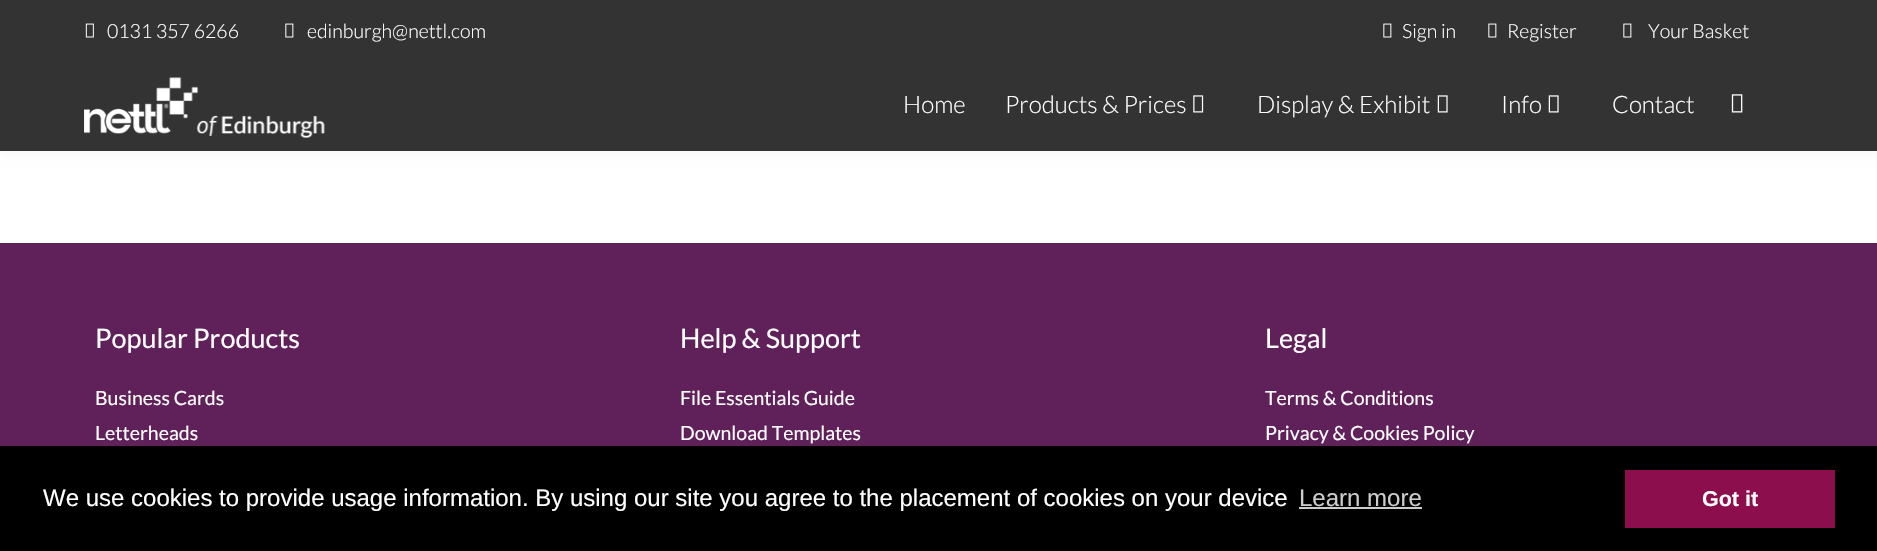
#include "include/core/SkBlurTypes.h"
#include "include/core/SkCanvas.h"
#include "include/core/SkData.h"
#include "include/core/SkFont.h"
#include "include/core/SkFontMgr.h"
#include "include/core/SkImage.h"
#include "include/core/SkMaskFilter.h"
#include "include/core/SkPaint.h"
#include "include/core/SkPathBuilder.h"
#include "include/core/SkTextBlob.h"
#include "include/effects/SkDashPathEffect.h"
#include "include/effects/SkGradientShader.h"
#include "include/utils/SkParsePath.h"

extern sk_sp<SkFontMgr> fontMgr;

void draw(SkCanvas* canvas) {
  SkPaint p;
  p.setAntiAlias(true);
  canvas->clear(SkColorSetRGB(96, 33, 90));
  p.setColor(SK_ColorWHITE);
  canvas->drawRect(SkRect::MakeLTRB(0, 151, 1877, 243), p);
  p.setColor(SkColorSetRGB(238, 238, 238));
  p.setMaskFilter(SkMaskFilter::MakeBlur(kNormal_SkBlurStyle, 6));
  canvas->drawRect(SkRect::MakeLTRB(0, 60, 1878, 150), p);
  p.setMaskFilter(nullptr);
  p.setColor(SkColorSetRGB(51, 51, 51));
  canvas->drawRect(SkRect::MakeLTRB(0, 0, 1877, 151), p);
  canvas->drawImageRect(SkImages::DeferredFromEncodedData(SkData::MakeFromFileName("images/1.png")), SkRect::MakeLTRB(85, 23, 94, 38), SkSamplingOptions());
  canvas->drawImageRect(SkImages::DeferredFromEncodedData(SkData::MakeFromFileName("images/2.png")), SkRect::MakeLTRB(285, 23, 294, 38), SkSamplingOptions());
  canvas->drawImageRect(SkImages::DeferredFromEncodedData(SkData::MakeFromFileName("images/2.png")), SkRect::MakeLTRB(1383, 23, 1392, 38), SkSamplingOptions());
  canvas->drawImageRect(SkImages::DeferredFromEncodedData(SkData::MakeFromFileName("images/2.png")), SkRect::MakeLTRB(1488, 23, 1497, 38), SkSamplingOptions());
  canvas->drawImageRect(SkImages::DeferredFromEncodedData(SkData::MakeFromFileName("images/2.png")), SkRect::MakeLTRB(1623, 23, 1632, 38), SkSamplingOptions());
  canvas->drawImageRect(SkImages::DeferredFromEncodedData(SkData::MakeFromFileName("images/3.png")), SkRect::MakeLTRB(84, 77, 325, 138), SkSamplingOptions());
  canvas->drawImageRect(SkImages::DeferredFromEncodedData(SkData::MakeFromFileName("images/4.png")), SkRect::MakeLTRB(1193, 95, 1204, 113), SkSamplingOptions());
  canvas->drawImageRect(SkImages::DeferredFromEncodedData(SkData::MakeFromFileName("images/5.png")), SkRect::MakeLTRB(1437, 95, 1448, 113), SkSamplingOptions());
  canvas->drawImageRect(SkImages::DeferredFromEncodedData(SkData::MakeFromFileName("images/5.png")), SkRect::MakeLTRB(1548, 95, 1559, 113), SkSamplingOptions());
  canvas->drawImageRect(SkImages::DeferredFromEncodedData(SkData::MakeFromFileName("images/6.png")), SkRect::MakeLTRB(1731, 94, 1743, 113), SkSamplingOptions());
  p.setColor(SK_ColorBLACK);
  canvas->drawRect(SkRect::MakeLTRB(0, 446, 1877, 551), p);
  p.setColor(SkColorSetRGB(204, 204, 204));
  canvas->drawRect(SkRect::MakeLTRB(1299, 507, 1422, 509), p);
  p.setColor(SkColorSetRGB(140, 14, 76));
  canvas->drawRect(SkRect::MakeLTRB(1625, 470, 1835, 528), p);
  SkFont font1(fontMgr->matchFamilyStyle("Lato", SkFontStyle(300, SkFontStyle::kNormal_Width, SkFontStyle::kUpright_Slant)), 19.5f);
  font1.setSubpixel(true);
  p.setColor(SK_ColorWHITE);
  canvas->drawString("0131 357 6266", 107, 38, font1, p);
  canvas->drawString("edinburgh@nettl.com", 307, 38, font1, p);
  canvas->drawString("Sign in", 1402, 38, font1, p);
  canvas->drawString("Register", 1507, 38, font1, p);
  canvas->drawString("Your Basket", 1648, 38, font1, p);
  SkFont font2(fontMgr->matchFamilyStyle("Lato", SkFontStyle(300, SkFontStyle::kNormal_Width, SkFontStyle::kUpright_Slant)), 24);
  font2.setSubpixel(true);
  canvas->drawString("Home", 903, 113, font2, p);
  canvas->drawString("Products & Prices", 1005, 113, font2, p);
  canvas->drawString("Display & Exhibit", 1257, 113, font2, p);
  canvas->drawString("Info", 1501, 113, font2, p);
  canvas->drawString("Contact", 1612, 113, font2, p);
  SkFont font3(fontMgr->matchFamilyStyle("Lato", SkFontStyle::Normal()), 27);
  font3.setSubpixel(true);
  canvas->drawString("Popular Products", 95, 348, font3, p);
  SkFont font4(fontMgr->matchFamilyStyle("Lato", SkFontStyle::Normal()), 19.5f);
  font4.setSubpixel(true);
  canvas->drawString("Business Cards", 95, 405, font4, p);
  canvas->drawString("Letterheads", 95, 440, font4, p);
  canvas->drawString("Help & Support", 680, 348, font3, p);
  canvas->drawString("File Essentials Guide", 680, 405, font4, p);
  canvas->drawString("Download Templates", 680, 440, font4, p);
  canvas->drawString("Legal", 1265, 348, font3, p);
  canvas->drawString("Terms & Conditions", 1265, 405, font4, p);
  canvas->drawString("Privacy & Cookies Policy", 1265, 440, font4, p);
  SkFont font5(fontMgr->matchFamilyStyle("Liberation Sans", SkFontStyle::Normal()), 24);
  font5.setSubpixel(true);
  canvas->drawString("We use cookies to provide usage information. By using our site you agree to the placement of cookies on your device", 43, 506, font5, p);
  p.setColor(SkColorSetRGB(204, 204, 204));
  canvas->drawString("Learn more", 1299, 506, font5, p);
  SkFont font6(fontMgr->matchFamilyStyle("Liberation Sans", SkFontStyle::Bold()), 21.5f);
  font6.setSubpixel(true);
  p.setColor(SK_ColorWHITE);
  canvas->drawString("Got it", 1702, 506, font6, p);
}
